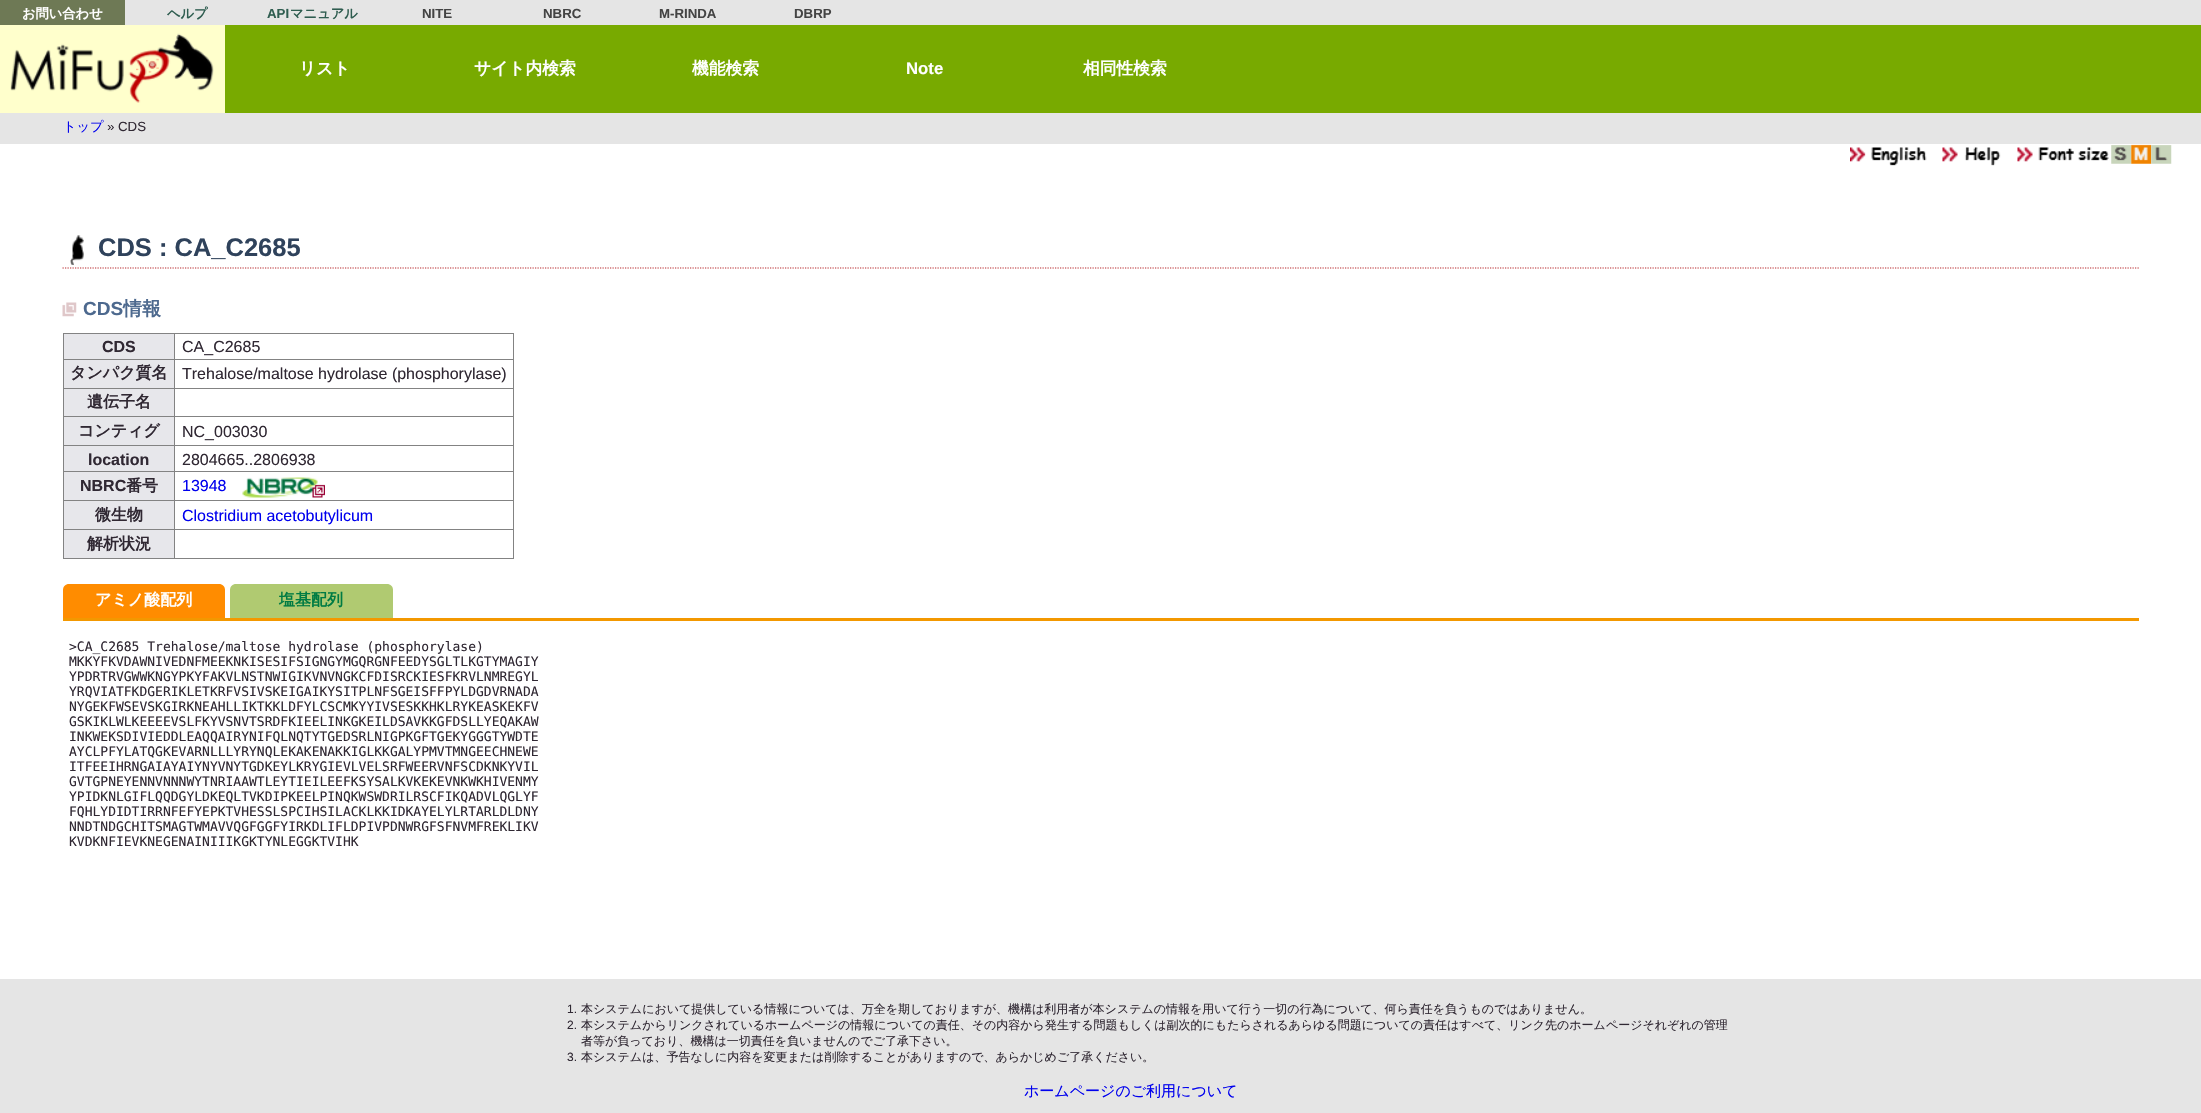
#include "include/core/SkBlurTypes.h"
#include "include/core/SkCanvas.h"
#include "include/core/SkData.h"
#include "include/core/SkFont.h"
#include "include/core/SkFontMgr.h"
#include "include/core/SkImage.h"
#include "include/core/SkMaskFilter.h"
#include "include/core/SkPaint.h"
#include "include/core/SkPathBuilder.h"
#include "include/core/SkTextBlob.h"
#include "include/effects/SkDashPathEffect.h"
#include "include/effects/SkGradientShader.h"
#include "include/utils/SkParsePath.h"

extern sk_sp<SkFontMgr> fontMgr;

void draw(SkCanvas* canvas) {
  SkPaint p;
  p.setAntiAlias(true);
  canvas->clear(SK_ColorWHITE);
  p.setColor(SkColorSetRGB(229, 229, 229));
  canvas->drawRect(SkRect::MakeLTRB(125, 0, 2201, 25), p);
  p.setColor(SkColorSetRGB(110, 121, 85));
  canvas->drawRect(SkRect::MakeLTRB(0, 0, 125, 25), p);
  p.setColor(SkColorSetRGB(120, 170, 0));
  canvas->drawRect(SkRect::MakeLTRB(225, 25, 2201, 113), p);
  p.setColor(SkColorSetRGB(255, 255, 204));
  canvas->drawRect(SkRect::MakeLTRB(0, 25, 225, 113), p);
  canvas->drawImageRect(SkImages::DeferredFromEncodedData(SkData::MakeFromFileName("images/1.png")), SkRect::MakeLTRB(10, 33, 214, 103), SkSamplingOptions());
  p.setColor(SkColorSetRGB(229, 229, 229));
  canvas->drawRect(SkRect::MakeLTRB(0, 113, 2201, 144), p);
  canvas->drawImageRect(SkImages::DeferredFromEncodedData(SkData::MakeFromFileName("images/2.png")), SkRect::MakeLTRB(1850, 147, 1927, 166), SkSamplingOptions());
  canvas->drawImageRect(SkImages::DeferredFromEncodedData(SkData::MakeFromFileName("images/3.png")), SkRect::MakeLTRB(1942, 147, 2001, 166), SkSamplingOptions());
  canvas->drawImageRect(SkImages::DeferredFromEncodedData(SkData::MakeFromFileName("images/4.png")), SkRect::MakeLTRB(2017, 147, 2109, 162), SkSamplingOptions());
  canvas->drawImageRect(SkImages::DeferredFromEncodedData(SkData::MakeFromFileName("images/5.png")), SkRect::MakeLTRB(2111, 145, 2132, 164), SkSamplingOptions());
  canvas->drawImageRect(SkImages::DeferredFromEncodedData(SkData::MakeFromFileName("images/6.png")), SkRect::MakeLTRB(2131, 144, 2152, 164), SkSamplingOptions());
  canvas->drawImageRect(SkImages::DeferredFromEncodedData(SkData::MakeFromFileName("images/7.png")), SkRect::MakeLTRB(2151, 145, 2172, 164), SkSamplingOptions());
  canvas->drawImageRect(SkImages::DeferredFromEncodedData(SkData::MakeFromFileName("images/8.png")), SkRect::MakeLTRB(70, 235, 84, 265), SkSamplingOptions());
  p.setStyle(SkPaint::kStroke_Style);
  p.setStrokeWidth(1.2f);
  p.setColor(SkColorSetRGB(183, 40, 46));
  p.setPathEffect(SkDashPathEffect::Make({{1.25f, 1.25f}}, 0));
  canvas->drawPath(SkPathBuilder().moveTo(62.5f, 268).lineTo(2139, 268).detach(), p);
  p.setPathEffect(nullptr);
  canvas->drawImageRect(SkImages::DeferredFromEncodedData(SkData::MakeFromFileName("images/9.png")), SkRect::MakeLTRB(62, 302, 77, 317), SkSamplingOptions());
  p.setStyle(SkPaint::kFill_Style);
  p.setColor(SkColorSetRGB(231, 231, 235));
  canvas->drawRect(SkRect::MakeLTRB(64, 334, 174, 359), p);
  p.setColor(SkColorSetRGB(131, 131, 131));
  canvas->drawRect(SkRect::MakeLTRB(174, 333, 514, 334), p);
  canvas->drawRect(SkRect::MakeLTRB(174, 359, 514, 360), p);
  canvas->drawRect(SkRect::MakeLTRB(174, 388, 514, 389), p);
  p.setColor(SkColorSetRGB(231, 231, 235));
  canvas->drawRect(SkRect::MakeLTRB(64, 389, 174, 445), p);
  p.setColor(SkColorSetRGB(131, 131, 131));
  canvas->drawRect(SkRect::MakeLTRB(174, 416, 514, 417), p);
  canvas->drawRect(SkRect::MakeLTRB(174, 445, 514, 446), p);
  p.setColor(SkColorSetRGB(231, 231, 235));
  canvas->drawRect(SkRect::MakeLTRB(64, 446, 174, 500), p);
  p.setColor(SkColorSetRGB(131, 131, 131));
  canvas->drawRect(SkRect::MakeLTRB(174, 471, 514, 472), p);
  canvas->drawRect(SkRect::MakeLTRB(174, 500, 514, 501), p);
  canvas->drawRect(SkRect::MakeLTRB(174, 529, 514, 530), p);
  canvas->drawRect(SkRect::MakeLTRB(513, 529, 514, 559), p);
  canvas->drawRect(SkRect::MakeLTRB(174, 558, 514, 559), p);
  canvas->drawRect(SkRect::MakeLTRB(174, 529, 175, 559), p);
  canvas->drawRect(SkRect::MakeLTRB(63, 529, 175, 530), p);
  canvas->drawRect(SkRect::MakeLTRB(174, 500, 175, 530), p);
  canvas->drawRect(SkRect::MakeLTRB(63, 500, 175, 501), p);
  canvas->drawRect(SkRect::MakeLTRB(174, 471, 175, 501), p);
  canvas->drawRect(SkRect::MakeLTRB(63, 471, 175, 472), p);
  canvas->drawRect(SkRect::MakeLTRB(174, 445, 175, 473), p);
  canvas->drawRect(SkRect::MakeLTRB(63, 445, 175, 446), p);
  canvas->drawRect(SkRect::MakeLTRB(174, 416, 175, 446), p);
  canvas->drawRect(SkRect::MakeLTRB(63, 416, 175, 417), p);
  canvas->drawRect(SkRect::MakeLTRB(174, 388, 175, 418), p);
  canvas->drawRect(SkRect::MakeLTRB(63, 388, 175, 389), p);
  canvas->drawRect(SkRect::MakeLTRB(174, 359, 175, 389), p);
  canvas->drawRect(SkRect::MakeLTRB(63, 359, 175, 360), p);
  canvas->drawRect(SkRect::MakeLTRB(174, 333, 175, 360), p);
  canvas->drawRect(SkRect::MakeLTRB(63, 333, 175, 334), p);
  canvas->drawRect(SkRect::MakeLTRB(63, 558, 175, 559), p);
  canvas->drawRect(SkRect::MakeLTRB(63, 529, 64, 559), p);
  canvas->drawRect(SkRect::MakeLTRB(63, 500, 64, 530), p);
  canvas->drawRect(SkRect::MakeLTRB(63, 471, 64, 501), p);
  canvas->drawRect(SkRect::MakeLTRB(63, 445, 64, 473), p);
  canvas->drawRect(SkRect::MakeLTRB(63, 416, 64, 446), p);
  canvas->drawRect(SkRect::MakeLTRB(63, 388, 64, 418), p);
  canvas->drawRect(SkRect::MakeLTRB(63, 359, 64, 389), p);
  canvas->drawRect(SkRect::MakeLTRB(63, 333, 64, 360), p);
  canvas->drawRect(SkRect::MakeLTRB(513, 500, 514, 530), p);
  canvas->drawRect(SkRect::MakeLTRB(513, 471, 514, 501), p);
  canvas->drawRect(SkRect::MakeLTRB(513, 445, 514, 473), p);
  canvas->drawRect(SkRect::MakeLTRB(513, 416, 514, 446), p);
  canvas->drawRect(SkRect::MakeLTRB(513, 388, 514, 418), p);
  canvas->drawRect(SkRect::MakeLTRB(513, 359, 514, 389), p);
  canvas->drawRect(SkRect::MakeLTRB(513, 333, 514, 360), p);
  p.setColor(SkColorSetRGB(231, 231, 235));
  canvas->drawRect(SkRect::MakeLTRB(64, 360, 174, 388), p);
  canvas->drawImageRect(SkImages::DeferredFromEncodedData(SkData::MakeFromFileName("images/10.png")), SkRect::MakeLTRB(242, 477, 325, 498), SkSamplingOptions());
  canvas->drawRect(SkRect::MakeLTRB(64, 501, 174, 529), p);
  canvas->drawRect(SkRect::MakeLTRB(64, 530, 174, 558), p);
  p.setColor(SkColorSetRGB(255, 140, 0));
  canvas->drawPath(SkPathBuilder().moveTo(69, 584).lineTo(219, 584).cubicTo(222.5f, 584, 225, 586.5f, 225, 590).lineTo(225, 618).lineTo(63, 618).lineTo(63, 590).cubicTo(63, 586.5f, 65.5f, 584, 69, 584).close().detach(), p);
  p.setColor(SkColorSetRGB(176, 202, 113));
  canvas->drawPath(SkPathBuilder().moveTo(236, 584).lineTo(387, 584).cubicTo(390.5f, 584, 393, 586.5f, 393, 590).lineTo(393, 618).lineTo(230, 618).lineTo(230, 590).cubicTo(230, 586.5f, 232.5f, 584, 236, 584).close().detach(), p);
  p.setColor(SkColorSetRGB(243, 152, 0));
  canvas->drawRect(SkRect::MakeLTRB(63, 618, 2139, 621), p);
  p.setColor(SkColorSetRGB(229, 229, 229));
  canvas->drawRect(SkRect::MakeLTRB(0, 979, 2201, 1113), p);
  SkFont font1(fontMgr->matchFamilyStyle("WenQuanYi Zen Hei", SkFontStyle::Bold()), 13.25f);
  font1.setSubpixel(true);
  p.setColor(SK_ColorWHITE);
  canvas->drawString("お問い合わせ", 22, 18, font1, p);
  p.setColor(SkColorSetRGB(47, 93, 80));
  canvas->drawString("ヘルプ", 167, 18, font1, p);
  SkFont font2(fontMgr->matchFamilyStyle("Liberation Sans", SkFontStyle::Bold()), 13.25f);
  font2.setSubpixel(true);
  canvas->drawString("API", 267, 18, font2, p);
  canvas->drawString("マニュアル", 290, 18, font1, p);
  p.setColor(SkColorSetRGB(68, 68, 68));
  canvas->drawString("NITE", 422, 18, font2, p);
  canvas->drawString("NBRC", 543, 18, font2, p);
  canvas->drawString("M-RINDA", 659, 18, font2, p);
  canvas->drawString("DBRP", 794, 18, font2, p);
  SkFont font3(fontMgr->matchFamilyStyle("WenQuanYi Zen Hei", SkFontStyle::Bold()), 16.75f);
  font3.setSubpixel(true);
  p.setColor(SK_ColorWHITE);
  canvas->drawString("リスト", 299, 74, font3, p);
  canvas->drawString("サイト内検索", 474, 74, font3, p);
  canvas->drawString("機能検索", 692, 74, font3, p);
  SkFont font4(fontMgr->matchFamilyStyle("Liberation Sans", SkFontStyle::Bold()), 16.75f);
  font4.setSubpixel(true);
  canvas->drawString("Note", 906, 74, font4, p);
  canvas->drawString("相同性検索", 1083, 74, font3, p);
  SkFont font5(fontMgr->matchFamilyStyle("WenQuanYi Zen Hei", SkFontStyle(500, SkFontStyle::kNormal_Width, SkFontStyle::kUpright_Slant)), 13.25f);
  font5.setSubpixel(true);
  p.setColor(SkColorSetRGB(0, 0, 238));
  canvas->drawString("トップ", 63, 131, font5, p);
  SkFont font6(fontMgr->matchFamilyStyle("Liberation Sans", SkFontStyle::Normal()), 13.25f);
  font6.setSubpixel(true);
  p.setColor(SkColorSetRGB(48, 40, 51));
  canvas->drawString("» CDS", 107, 131, font6, p);
  SkFont font7(fontMgr->matchFamilyStyle("Liberation Sans", SkFontStyle::Bold()), 25.5f);
  font7.setSubpixel(true);
  p.setColor(SkColorSetRGB(47, 66, 91));
  canvas->drawString("CDS : CA_C2685", 98, 256, font7, p);
  SkFont font8(fontMgr->matchFamilyStyle("Liberation Sans", SkFontStyle::Bold()), 19);
  font8.setSubpixel(true);
  p.setColor(SkColorSetRGB(77, 105, 142));
  canvas->drawString("CDS", 83, 315, font8, p);
  SkFont font9(fontMgr->matchFamilyStyle("WenQuanYi Zen Hei", SkFontStyle::Bold()), 19);
  font9.setSubpixel(true);
  canvas->drawString("情報", 123, 315, font9, p);
  SkFont font10(fontMgr->matchFamilyStyle("Liberation Sans", SkFontStyle::Bold()), 16);
  font10.setSubpixel(true);
  p.setColor(SkColorSetRGB(48, 40, 51));
  canvas->drawString("CDS", 102, 352, font10, p);
  SkFont font11(fontMgr->matchFamilyStyle("Liberation Sans", SkFontStyle::Normal()), 16);
  font11.setSubpixel(true);
  canvas->drawString("CA_C2685", 182, 352, font11, p);
  SkFont font12(fontMgr->matchFamilyStyle("WenQuanYi Zen Hei", SkFontStyle::Bold()), 16);
  font12.setSubpixel(true);
  canvas->drawString("タンパク質名", 70, 378, font12, p);
  canvas->drawString("Trehalose/maltose hydrolase (phosphorylase)", 182, 379, font11, p);
  canvas->drawString("遺伝子名", 87, 407, font12, p);
  canvas->drawString("コンティグ", 78, 436, font12, p);
  canvas->drawString("NC_003030", 182, 437, font11, p);
  canvas->drawString("location", 88, 465, font10, p);
  canvas->drawString("2804665..2806938", 182, 465, font11, p);
  canvas->drawString("NBRC", 80, 491, font10, p);
  canvas->drawString("番号", 126, 491, font12, p);
  p.setColor(SkColorSetRGB(0, 0, 238));
  canvas->drawString("13948", 182, 491, font11, p);
  p.setColor(SkColorSetRGB(48, 40, 51));
  canvas->drawString("微生物", 95, 520, font12, p);
  p.setColor(SkColorSetRGB(0, 0, 238));
  canvas->drawString("Clostridium acetobutylicum", 182, 521, font11, p);
  p.setColor(SkColorSetRGB(48, 40, 51));
  canvas->drawString("解析状況", 87, 549, font12, p);
  p.setColor(SK_ColorWHITE);
  canvas->drawString("アミノ酸配列", 95, 605, font12, p);
  p.setColor(SkColorSetRGB(0, 123, 67));
  canvas->drawString("塩基配列", 279, 605, font12, p);
  SkFont font13(fontMgr->matchFamilyStyle("DejaVu Sans Mono", SkFontStyle::Normal()), 13);
  font13.setSubpixel(true);
  p.setColor(SkColorSetRGB(48, 40, 51));
  canvas->drawString(">CA_C2685 Trehalose/maltose hydrolase (phosphorylase)", 69, 651, font13, p);
  canvas->drawString("MKKYFKVDAWNIVEDNFMEEKNKISESIFSIGNGYMGQRGNFEEDYSGLTLKGTYMAGIY", 69, 666, font13, p);
  canvas->drawString("YPDRTRVGWWKNGYPKYFAKVLNSTNWIGIKVNVNGKCFDISRCKIESFKRVLNMREGYL", 69, 681, font13, p);
  canvas->drawString("YRQVIATFKDGERIKLETKRFVSIVSKEIGAIKYSITPLNFSGEISFFPYLDGDVRNADA", 69, 696, font13, p);
  canvas->drawString("NYGEKFWSEVSKGIRKNEAHLLIKTKKLDFYLCSCMKYYIVSESKKHKLRYKEASKEKFV", 69, 711, font13, p);
  canvas->drawString("GSKIKLWLKEEEEVSLFKYVSNVTSRDFKIEELINKGKEILDSAVKKGFDSLLYEQAKAW", 69, 726, font13, p);
  canvas->drawString("INKWEKSDIVIEDDLEAQQAIRYNIFQLNQTYTGEDSRLNIGPKGFTGEKYGGGTYWDTE", 69, 741, font13, p);
  canvas->drawString("AYCLPFYLATQGKEVARNLLLYRYNQLEKAKENAKKIGLKKGALYPMVTMNGEECHNEWE", 69, 756, font13, p);
  canvas->drawString("ITFEEIHRNGAIAYAIYNYVNYTGDKEYLKRYGIEVLVELSRFWEERVNFSCDKNKYVIL", 69, 771, font13, p);
  canvas->drawString("GVTGPNEYENNVNNNWYTNRIAAWTLEYTIEILEEFKSYSALKVKEKEVNKWKHIVENMY", 69, 786, font13, p);
  canvas->drawString("YPIDKNLGIFLQQDGYLDKEQLTVKDIPKEELPINQKWSWDRILRSCFIKQADVLQGLYF", 69, 801, font13, p);
  canvas->drawString("FQHLYDIDTIRRNFEFYEPKTVHESSLSPCIHSILACKLKKIDKAYELYLRTARLDLDNY", 69, 816, font13, p);
  canvas->drawString("NNDTNDGCHITSMAGTWMAVVQGFGGFYIRKDLIFLDPIVPDNWRGFSFNVMFREKLIKV", 69, 831, font13, p);
  canvas->drawString("KVDKNFIEVKNEGENAINIIIKGKTYNLEGGKTVIHK", 69, 846, font13, p);
  SkFont font14(fontMgr->matchFamilyStyle("Liberation Sans", SkFontStyle::Normal()), 12);
  font14.setSubpixel(true);
  canvas->drawString("1.", 567, 1013, font14, p);
  SkFont font15(fontMgr->matchFamilyStyle("WenQuanYi Zen Hei", SkFontStyle(500, SkFontStyle::kNormal_Width, SkFontStyle::kUpright_Slant)), 12);
  font15.setSubpixel(true);
  canvas->drawString("本システムにおいて提供している情報については、万全を期しておりますが、機構は利用者が本システムの情報を用いて行う一切の行為について、何ら責任を負うものではありません。", 581, 1013, font15, p);
  canvas->drawString("2.", 567, 1029, font14, p);
  canvas->drawString("本システムからリンクされているホームページの情報についての責任、その内容から発生する問題もしくは副次的にもたらされるあらゆる問題についての責任はすべて、リンク先のホームページそれぞれの管理", 581, 1029, font15, p);
  canvas->drawString("者等が負っており、機構は一切責任を負いませんのでご了承下さい。", 581, 1045, font15, p);
  canvas->drawString("3.", 567, 1061, font14, p);
  canvas->drawString("本システムは、予告なしに内容を変更または削除することがありますので、あらかじめご了承ください。", 581, 1061, font15, p);
  SkFont font16(fontMgr->matchFamilyStyle("WenQuanYi Zen Hei", SkFontStyle(500, SkFontStyle::kNormal_Width, SkFontStyle::kUpright_Slant)), 15);
  font16.setSubpixel(true);
  p.setColor(SkColorSetRGB(0, 0, 238));
  canvas->drawString("ホームページのご利用について", 1024, 1096, font16, p);
}
